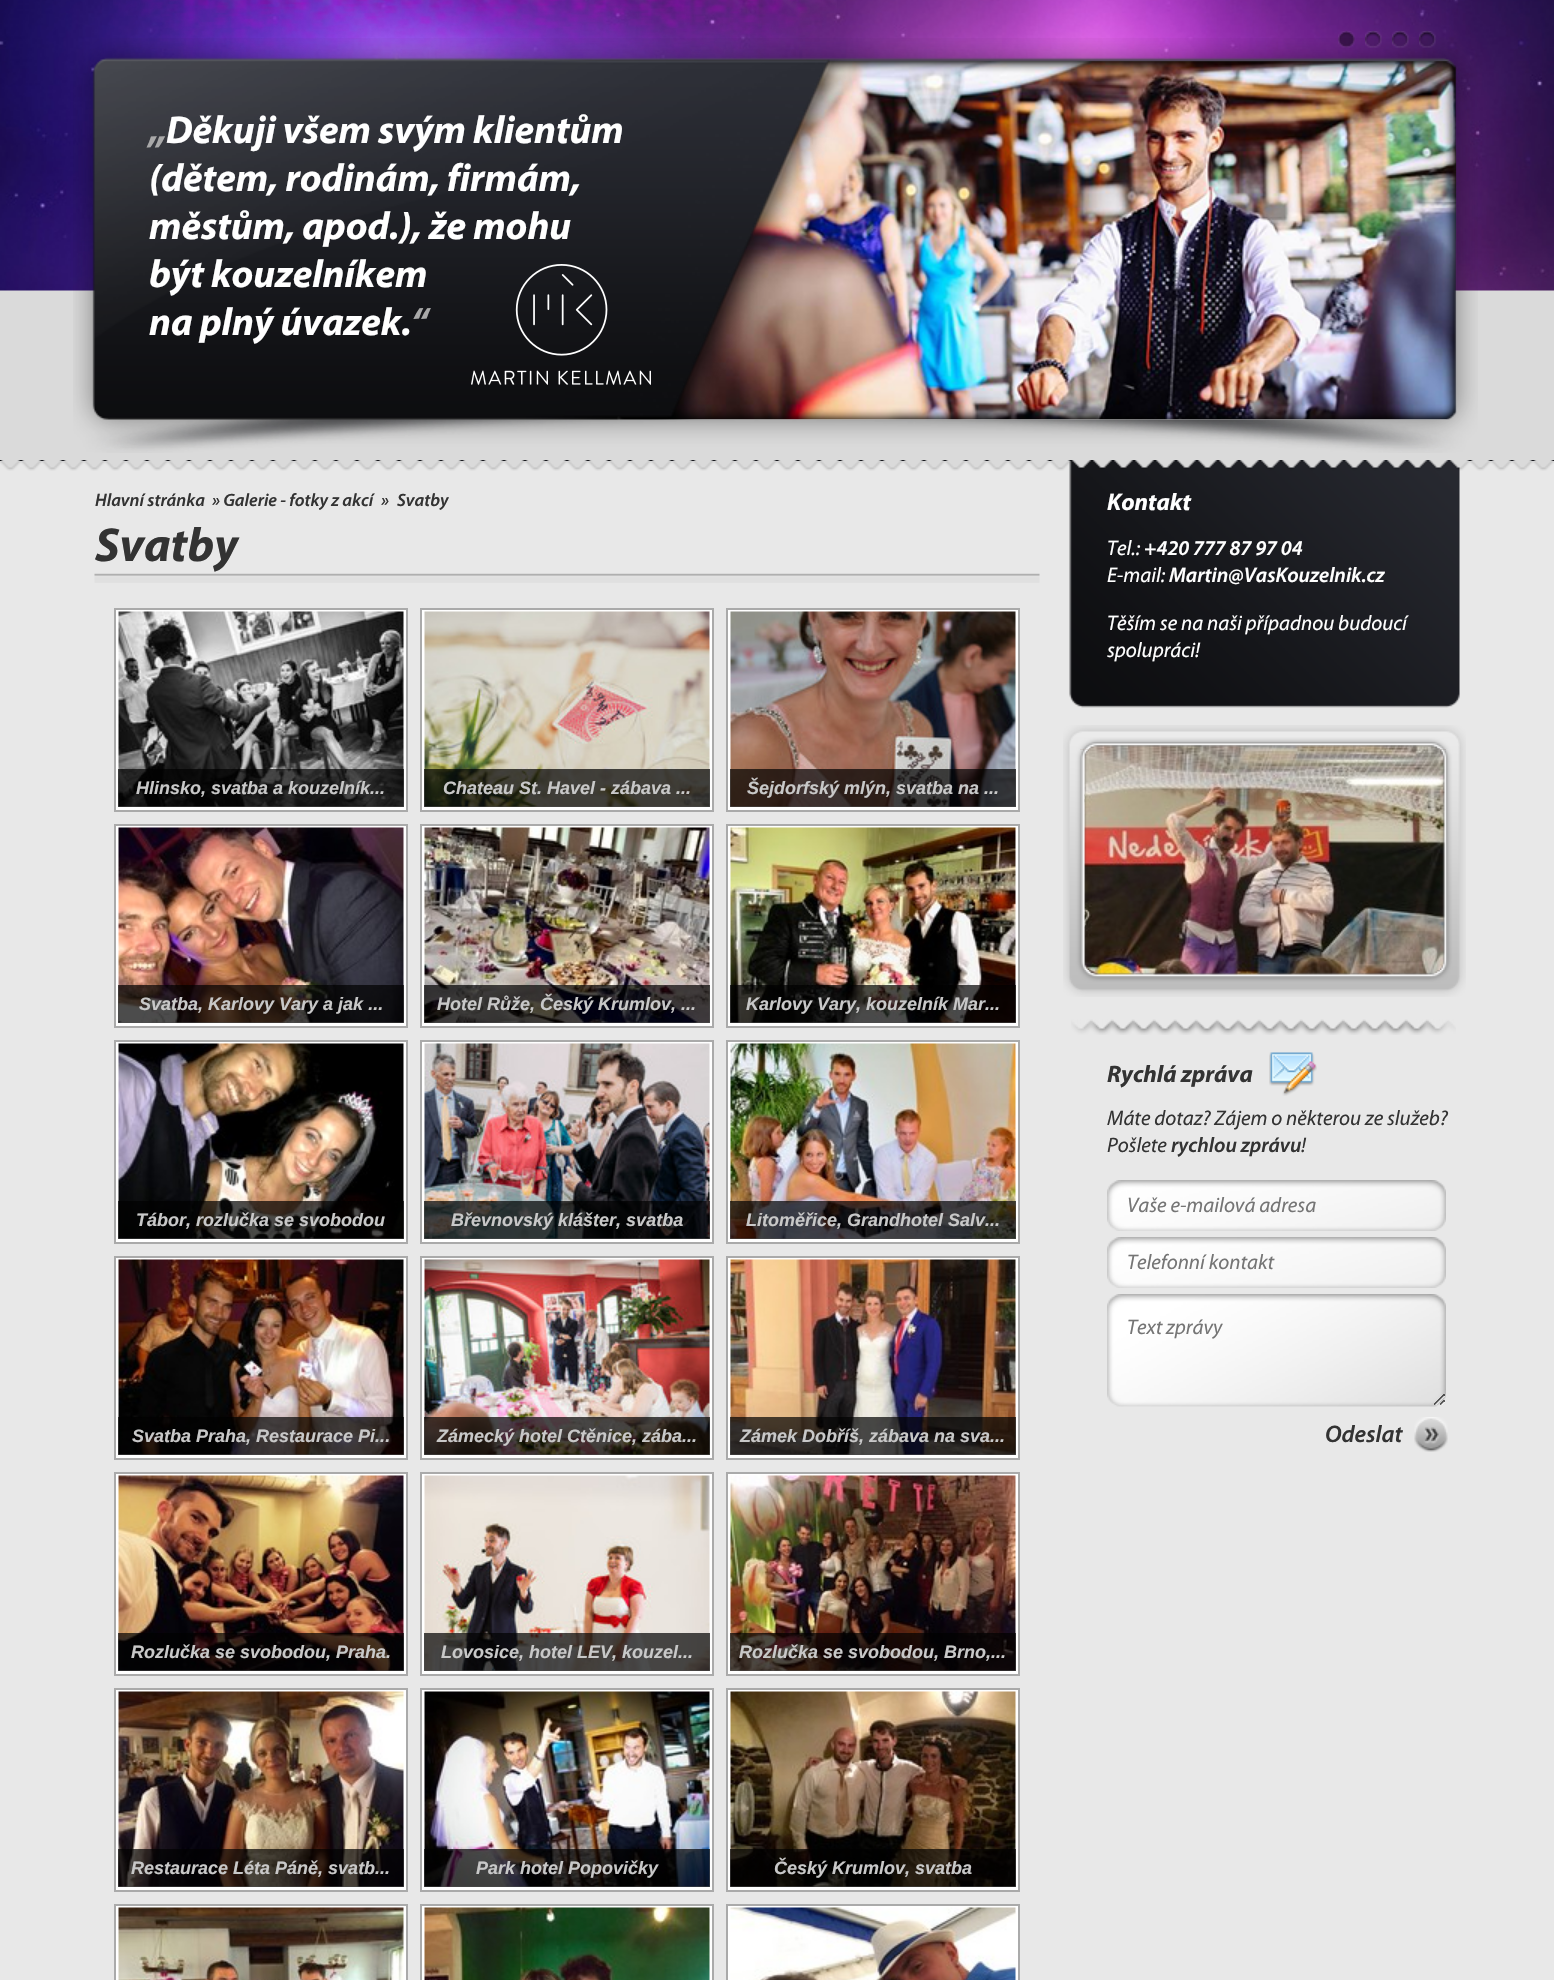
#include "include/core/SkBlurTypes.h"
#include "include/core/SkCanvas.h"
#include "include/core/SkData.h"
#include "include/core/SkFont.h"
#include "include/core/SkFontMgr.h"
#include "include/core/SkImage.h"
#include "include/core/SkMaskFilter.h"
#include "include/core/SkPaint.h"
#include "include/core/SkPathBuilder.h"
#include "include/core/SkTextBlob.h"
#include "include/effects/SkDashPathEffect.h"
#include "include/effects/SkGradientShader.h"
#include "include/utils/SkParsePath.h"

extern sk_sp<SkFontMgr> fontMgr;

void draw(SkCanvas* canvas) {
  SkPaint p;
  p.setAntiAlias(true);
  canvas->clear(SkColorSetRGB(28, 30, 35));
  p.setColor(SkColorSetRGB(218, 218, 218));
  canvas->drawRect(SkRect::MakeLTRB(0, 290, 1554, 460), p);
  canvas->drawImageRect(SkImages::DeferredFromEncodedData(SkData::MakeFromFileName("images/1.png")), SkRect::MakeLTRB(0, 0, 1554, 291), SkSamplingOptions());
  canvas->drawImageRect(SkImages::DeferredFromEncodedData(SkData::MakeFromFileName("images/2.png")), SkRect::MakeLTRB(113, 0, 837, 59), SkSamplingOptions());
  canvas->drawImageRect(SkImages::DeferredFromEncodedData(SkData::MakeFromFileName("images/9.png")), SkRect::MakeLTRB(618, 61, 1457, 420), SkSamplingOptions());
  canvas->drawImageRect(SkImages::DeferredFromEncodedData(SkData::MakeFromFileName("images/7.png")), SkRect::MakeLTRB(73, 38, 1478, 453), SkSamplingOptions());
  canvas->drawImageRect(SkImages::DeferredFromEncodedData(SkData::MakeFromFileName("images/3.png")), SkRect::MakeLTRB(1338, 31, 1355, 48), SkSamplingOptions());
  canvas->drawImageRect(SkImages::DeferredFromEncodedData(SkData::MakeFromFileName("images/4.png")), SkRect::MakeLTRB(1365, 31, 1382, 48), SkSamplingOptions());
  canvas->drawImageRect(SkImages::DeferredFromEncodedData(SkData::MakeFromFileName("images/5.png")), SkRect::MakeLTRB(1392, 31, 1409, 48), SkSamplingOptions());
  canvas->drawImageRect(SkImages::DeferredFromEncodedData(SkData::MakeFromFileName("images/6.png")), SkRect::MakeLTRB(1419, 31, 1436, 48), SkSamplingOptions());
  canvas->drawImageRect(SkImages::DeferredFromEncodedData(SkData::MakeFromFileName("images/8.png")), SkRect::MakeLTRB(471, 264, 651, 385), SkSamplingOptions());
  p.setColor(SkColorSetRGB(232, 232, 232));
  canvas->drawRect(SkRect::MakeLTRB(0, 461, 1554, 1980), p);
  canvas->drawImageRect(SkImages::DeferredFromEncodedData(SkData::MakeFromFileName("images/33.png")), SkRect::MakeLTRB(1069, 460, 1460, 708), SkSamplingOptions());
  canvas->drawImageRect(SkImages::DeferredFromEncodedData(SkData::MakeFromFileName("images/10.png")), SkRect::MakeLTRB(0, 460, 1554, 471), SkSamplingOptions());
  canvas->drawImageRect(SkImages::DeferredFromEncodedData(SkData::MakeFromFileName("images/11.png")), SkRect::MakeLTRB(94, 573, 1040, 583), SkSamplingOptions());
  p.setColor(SK_ColorWHITE);
  canvas->drawRect(SkRect::MakeLTRB(115, 609, 407, 811), p);
  p.setStyle(SkPaint::kStroke_Style);
  p.setStrokeWidth(2);
  p.setColor(SkColorSetRGB(170, 170, 170));
  canvas->drawRect(SkRect::MakeLTRB(115, 609, 407, 811), p);
  canvas->drawImageRect(SkImages::DeferredFromEncodedData(SkData::MakeFromFileName("images/12.png")), SkRect::MakeLTRB(118, 611, 404, 807), SkSamplingOptions());
  p.setStyle(SkPaint::kFill_Style);
  p.setColor(SkColorSetARGB(179, 0, 0, 0));
  canvas->drawRect(SkRect::MakeLTRB(118, 769, 404, 807), p);
  p.setColor(SK_ColorWHITE);
  canvas->drawRect(SkRect::MakeLTRB(421, 609, 713, 811), p);
  p.setStyle(SkPaint::kStroke_Style);
  p.setColor(SkColorSetRGB(170, 170, 170));
  canvas->drawRect(SkRect::MakeLTRB(421, 609, 713, 811), p);
  canvas->drawImageRect(SkImages::DeferredFromEncodedData(SkData::MakeFromFileName("images/13.png")), SkRect::MakeLTRB(424, 611, 710, 807), SkSamplingOptions());
  p.setStyle(SkPaint::kFill_Style);
  p.setColor(SkColorSetARGB(179, 0, 0, 0));
  canvas->drawRect(SkRect::MakeLTRB(424, 769, 710, 807), p);
  p.setColor(SK_ColorWHITE);
  canvas->drawRect(SkRect::MakeLTRB(727, 609, 1019, 811), p);
  p.setStyle(SkPaint::kStroke_Style);
  p.setColor(SkColorSetRGB(170, 170, 170));
  canvas->drawRect(SkRect::MakeLTRB(727, 609, 1019, 811), p);
  canvas->drawImageRect(SkImages::DeferredFromEncodedData(SkData::MakeFromFileName("images/14.png")), SkRect::MakeLTRB(730, 611, 1016, 807), SkSamplingOptions());
  p.setStyle(SkPaint::kFill_Style);
  p.setColor(SkColorSetARGB(179, 0, 0, 0));
  canvas->drawRect(SkRect::MakeLTRB(730, 769, 1016, 807), p);
  p.setColor(SK_ColorWHITE);
  canvas->drawRect(SkRect::MakeLTRB(115, 825, 407, 1027), p);
  p.setStyle(SkPaint::kStroke_Style);
  p.setColor(SkColorSetRGB(170, 170, 170));
  canvas->drawRect(SkRect::MakeLTRB(115, 825, 407, 1027), p);
  canvas->drawImageRect(SkImages::DeferredFromEncodedData(SkData::MakeFromFileName("images/15.png")), SkRect::MakeLTRB(118, 827, 404, 1023), SkSamplingOptions());
  p.setStyle(SkPaint::kFill_Style);
  p.setColor(SkColorSetARGB(179, 0, 0, 0));
  canvas->drawRect(SkRect::MakeLTRB(118, 985, 404, 1023), p);
  p.setColor(SK_ColorWHITE);
  canvas->drawRect(SkRect::MakeLTRB(421, 825, 713, 1027), p);
  p.setStyle(SkPaint::kStroke_Style);
  p.setColor(SkColorSetRGB(170, 170, 170));
  canvas->drawRect(SkRect::MakeLTRB(421, 825, 713, 1027), p);
  canvas->drawImageRect(SkImages::DeferredFromEncodedData(SkData::MakeFromFileName("images/16.png")), SkRect::MakeLTRB(424, 827, 710, 1023), SkSamplingOptions());
  p.setStyle(SkPaint::kFill_Style);
  p.setColor(SkColorSetARGB(179, 0, 0, 0));
  canvas->drawRect(SkRect::MakeLTRB(424, 985, 710, 1023), p);
  p.setColor(SK_ColorWHITE);
  canvas->drawRect(SkRect::MakeLTRB(727, 825, 1019, 1027), p);
  p.setStyle(SkPaint::kStroke_Style);
  p.setColor(SkColorSetRGB(170, 170, 170));
  canvas->drawRect(SkRect::MakeLTRB(727, 825, 1019, 1027), p);
  canvas->drawImageRect(SkImages::DeferredFromEncodedData(SkData::MakeFromFileName("images/17.png")), SkRect::MakeLTRB(730, 827, 1016, 1023), SkSamplingOptions());
  p.setStyle(SkPaint::kFill_Style);
  p.setColor(SkColorSetARGB(179, 0, 0, 0));
  canvas->drawRect(SkRect::MakeLTRB(730, 985, 1016, 1023), p);
  p.setColor(SK_ColorWHITE);
  canvas->drawRect(SkRect::MakeLTRB(115, 1041, 407, 1243), p);
  p.setStyle(SkPaint::kStroke_Style);
  p.setColor(SkColorSetRGB(170, 170, 170));
  canvas->drawRect(SkRect::MakeLTRB(115, 1041, 407, 1243), p);
  canvas->drawImageRect(SkImages::DeferredFromEncodedData(SkData::MakeFromFileName("images/18.png")), SkRect::MakeLTRB(118, 1043, 404, 1239), SkSamplingOptions());
  p.setStyle(SkPaint::kFill_Style);
  p.setColor(SkColorSetARGB(179, 0, 0, 0));
  canvas->drawRect(SkRect::MakeLTRB(118, 1201, 404, 1239), p);
  p.setColor(SK_ColorWHITE);
  canvas->drawRect(SkRect::MakeLTRB(421, 1041, 713, 1243), p);
  p.setStyle(SkPaint::kStroke_Style);
  p.setColor(SkColorSetRGB(170, 170, 170));
  canvas->drawRect(SkRect::MakeLTRB(421, 1041, 713, 1243), p);
  canvas->drawImageRect(SkImages::DeferredFromEncodedData(SkData::MakeFromFileName("images/19.png")), SkRect::MakeLTRB(424, 1043, 710, 1239), SkSamplingOptions());
  p.setStyle(SkPaint::kFill_Style);
  p.setColor(SkColorSetARGB(179, 0, 0, 0));
  canvas->drawRect(SkRect::MakeLTRB(424, 1201, 710, 1239), p);
  p.setColor(SK_ColorWHITE);
  canvas->drawRect(SkRect::MakeLTRB(727, 1041, 1019, 1243), p);
  p.setStyle(SkPaint::kStroke_Style);
  p.setColor(SkColorSetRGB(170, 170, 170));
  canvas->drawRect(SkRect::MakeLTRB(727, 1041, 1019, 1243), p);
  canvas->drawImageRect(SkImages::DeferredFromEncodedData(SkData::MakeFromFileName("images/20.png")), SkRect::MakeLTRB(730, 1043, 1016, 1239), SkSamplingOptions());
  p.setStyle(SkPaint::kFill_Style);
  p.setColor(SkColorSetARGB(179, 0, 0, 0));
  canvas->drawRect(SkRect::MakeLTRB(730, 1201, 1016, 1239), p);
  p.setColor(SK_ColorWHITE);
  canvas->drawRect(SkRect::MakeLTRB(115, 1257, 407, 1459), p);
  p.setStyle(SkPaint::kStroke_Style);
  p.setColor(SkColorSetRGB(170, 170, 170));
  canvas->drawRect(SkRect::MakeLTRB(115, 1257, 407, 1459), p);
  canvas->drawImageRect(SkImages::DeferredFromEncodedData(SkData::MakeFromFileName("images/21.png")), SkRect::MakeLTRB(118, 1259, 404, 1455), SkSamplingOptions());
  p.setStyle(SkPaint::kFill_Style);
  p.setColor(SkColorSetARGB(179, 0, 0, 0));
  canvas->drawRect(SkRect::MakeLTRB(118, 1417, 404, 1455), p);
  p.setColor(SK_ColorWHITE);
  canvas->drawRect(SkRect::MakeLTRB(421, 1257, 713, 1459), p);
  p.setStyle(SkPaint::kStroke_Style);
  p.setColor(SkColorSetRGB(170, 170, 170));
  canvas->drawRect(SkRect::MakeLTRB(421, 1257, 713, 1459), p);
  canvas->drawImageRect(SkImages::DeferredFromEncodedData(SkData::MakeFromFileName("images/22.png")), SkRect::MakeLTRB(424, 1259, 710, 1455), SkSamplingOptions());
  p.setStyle(SkPaint::kFill_Style);
  p.setColor(SkColorSetARGB(179, 0, 0, 0));
  canvas->drawRect(SkRect::MakeLTRB(424, 1417, 710, 1455), p);
  p.setColor(SK_ColorWHITE);
  canvas->drawRect(SkRect::MakeLTRB(727, 1257, 1019, 1459), p);
  p.setStyle(SkPaint::kStroke_Style);
  p.setColor(SkColorSetRGB(170, 170, 170));
  canvas->drawRect(SkRect::MakeLTRB(727, 1257, 1019, 1459), p);
  canvas->drawImageRect(SkImages::DeferredFromEncodedData(SkData::MakeFromFileName("images/23.png")), SkRect::MakeLTRB(730, 1259, 1016, 1455), SkSamplingOptions());
  p.setStyle(SkPaint::kFill_Style);
  p.setColor(SkColorSetARGB(179, 0, 0, 0));
  canvas->drawRect(SkRect::MakeLTRB(730, 1417, 1016, 1455), p);
  p.setColor(SK_ColorWHITE);
  canvas->drawRect(SkRect::MakeLTRB(115, 1473, 407, 1675), p);
  p.setStyle(SkPaint::kStroke_Style);
  p.setColor(SkColorSetRGB(170, 170, 170));
  canvas->drawRect(SkRect::MakeLTRB(115, 1473, 407, 1675), p);
  canvas->drawImageRect(SkImages::DeferredFromEncodedData(SkData::MakeFromFileName("images/24.png")), SkRect::MakeLTRB(118, 1475, 404, 1671), SkSamplingOptions());
  p.setStyle(SkPaint::kFill_Style);
  p.setColor(SkColorSetARGB(179, 0, 0, 0));
  canvas->drawRect(SkRect::MakeLTRB(118, 1633, 404, 1671), p);
  p.setColor(SK_ColorWHITE);
  canvas->drawRect(SkRect::MakeLTRB(421, 1473, 713, 1675), p);
  p.setStyle(SkPaint::kStroke_Style);
  p.setColor(SkColorSetRGB(170, 170, 170));
  canvas->drawRect(SkRect::MakeLTRB(421, 1473, 713, 1675), p);
  canvas->drawImageRect(SkImages::DeferredFromEncodedData(SkData::MakeFromFileName("images/25.png")), SkRect::MakeLTRB(424, 1475, 710, 1671), SkSamplingOptions());
  p.setStyle(SkPaint::kFill_Style);
  p.setColor(SkColorSetARGB(179, 0, 0, 0));
  canvas->drawRect(SkRect::MakeLTRB(424, 1633, 710, 1671), p);
  p.setColor(SK_ColorWHITE);
  canvas->drawRect(SkRect::MakeLTRB(727, 1473, 1019, 1675), p);
  p.setStyle(SkPaint::kStroke_Style);
  p.setColor(SkColorSetRGB(170, 170, 170));
  canvas->drawRect(SkRect::MakeLTRB(727, 1473, 1019, 1675), p);
  canvas->drawImageRect(SkImages::DeferredFromEncodedData(SkData::MakeFromFileName("images/26.png")), SkRect::MakeLTRB(730, 1475, 1016, 1671), SkSamplingOptions());
  p.setStyle(SkPaint::kFill_Style);
  p.setColor(SkColorSetARGB(179, 0, 0, 0));
  canvas->drawRect(SkRect::MakeLTRB(730, 1633, 1016, 1671), p);
  p.setColor(SK_ColorWHITE);
  canvas->drawRect(SkRect::MakeLTRB(115, 1689, 407, 1891), p);
  p.setStyle(SkPaint::kStroke_Style);
  p.setColor(SkColorSetRGB(170, 170, 170));
  canvas->drawRect(SkRect::MakeLTRB(115, 1689, 407, 1891), p);
  canvas->drawImageRect(SkImages::DeferredFromEncodedData(SkData::MakeFromFileName("images/27.png")), SkRect::MakeLTRB(118, 1691, 404, 1887), SkSamplingOptions());
  p.setStyle(SkPaint::kFill_Style);
  p.setColor(SkColorSetARGB(179, 0, 0, 0));
  canvas->drawRect(SkRect::MakeLTRB(118, 1849, 404, 1887), p);
  p.setColor(SK_ColorWHITE);
  canvas->drawRect(SkRect::MakeLTRB(421, 1689, 713, 1891), p);
  p.setStyle(SkPaint::kStroke_Style);
  p.setColor(SkColorSetRGB(170, 170, 170));
  canvas->drawRect(SkRect::MakeLTRB(421, 1689, 713, 1891), p);
  canvas->drawImageRect(SkImages::DeferredFromEncodedData(SkData::MakeFromFileName("images/28.png")), SkRect::MakeLTRB(424, 1691, 710, 1887), SkSamplingOptions());
  p.setStyle(SkPaint::kFill_Style);
  p.setColor(SkColorSetARGB(179, 0, 0, 0));
  canvas->drawRect(SkRect::MakeLTRB(424, 1849, 710, 1887), p);
  p.setColor(SK_ColorWHITE);
  canvas->drawRect(SkRect::MakeLTRB(727, 1689, 1019, 1891), p);
  p.setStyle(SkPaint::kStroke_Style);
  p.setColor(SkColorSetRGB(170, 170, 170));
  canvas->drawRect(SkRect::MakeLTRB(727, 1689, 1019, 1891), p);
  canvas->drawImageRect(SkImages::DeferredFromEncodedData(SkData::MakeFromFileName("images/29.png")), SkRect::MakeLTRB(730, 1691, 1016, 1887), SkSamplingOptions());
  p.setStyle(SkPaint::kFill_Style);
  p.setColor(SkColorSetARGB(179, 0, 0, 0));
  canvas->drawRect(SkRect::MakeLTRB(730, 1849, 1016, 1887), p);
  p.setColor(SK_ColorWHITE);
  canvas->drawRect(SkRect::MakeLTRB(115, 1905, 407, 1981), p);
  p.setStyle(SkPaint::kStroke_Style);
  p.setColor(SkColorSetRGB(170, 170, 170));
  canvas->drawRect(SkRect::MakeLTRB(115, 1905, 407, 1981), p);
  canvas->drawImageRect(SkImages::DeferredFromEncodedData(SkData::MakeFromFileName("images/30.png")), SkRect::MakeLTRB(118, 1907, 404, 1980), SkSamplingOptions());
  p.setStyle(SkPaint::kFill_Style);
  p.setColor(SK_ColorWHITE);
  canvas->drawRect(SkRect::MakeLTRB(421, 1905, 713, 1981), p);
  p.setStyle(SkPaint::kStroke_Style);
  p.setColor(SkColorSetRGB(170, 170, 170));
  canvas->drawRect(SkRect::MakeLTRB(421, 1905, 713, 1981), p);
  canvas->drawImageRect(SkImages::DeferredFromEncodedData(SkData::MakeFromFileName("images/31.png")), SkRect::MakeLTRB(424, 1907, 710, 1980), SkSamplingOptions());
  p.setStyle(SkPaint::kFill_Style);
  p.setColor(SK_ColorWHITE);
  canvas->drawRect(SkRect::MakeLTRB(727, 1905, 1019, 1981), p);
  p.setStyle(SkPaint::kStroke_Style);
  p.setColor(SkColorSetRGB(170, 170, 170));
  canvas->drawRect(SkRect::MakeLTRB(727, 1905, 1019, 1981), p);
  canvas->drawImageRect(SkImages::DeferredFromEncodedData(SkData::MakeFromFileName("images/32.png")), SkRect::MakeLTRB(730, 1907, 1016, 1980), SkSamplingOptions());
  canvas->drawImageRect(SkImages::DeferredFromEncodedData(SkData::MakeFromFileName("images/36.png")), SkRect::MakeLTRB(1080, 745, 1446, 975), SkSamplingOptions());
  canvas->drawImageRect(SkImages::DeferredFromEncodedData(SkData::MakeFromFileName("images/34.png")), SkRect::MakeLTRB(1063, 725, 1466, 750), SkSamplingOptions());
  canvas->drawImageRect(SkImages::DeferredFromEncodedData(SkData::MakeFromFileName("images/35.png")), SkRect::MakeLTRB(1063, 749, 1089, 970), SkSamplingOptions());
  canvas->drawImageRect(SkImages::DeferredFromEncodedData(SkData::MakeFromFileName("images/37.png")), SkRect::MakeLTRB(1440, 749, 1466, 970), SkSamplingOptions());
  canvas->drawImageRect(SkImages::DeferredFromEncodedData(SkData::MakeFromFileName("images/38.png")), SkRect::MakeLTRB(1063, 970, 1466, 997), SkSamplingOptions());
  canvas->drawImageRect(SkImages::DeferredFromEncodedData(SkData::MakeFromFileName("images/39.png")), SkRect::MakeLTRB(1071, 1019, 1456, 1035), SkSamplingOptions());
  canvas->drawImageRect(SkImages::DeferredFromEncodedData(SkData::MakeFromFileName("images/40.png")), SkRect::MakeLTRB(1269, 1052, 1317, 1096), SkSamplingOptions());
  canvas->drawImageRect(SkImages::DeferredFromEncodedData(SkData::MakeFromFileName("images/41.png")), SkRect::MakeLTRB(1107, 1180, 1446, 1231), SkSamplingOptions());
  canvas->drawImageRect(SkImages::DeferredFromEncodedData(SkData::MakeFromFileName("images/41.png")), SkRect::MakeLTRB(1107, 1237, 1446, 1288), SkSamplingOptions());
  canvas->drawImageRect(SkImages::DeferredFromEncodedData(SkData::MakeFromFileName("images/42.png")), SkRect::MakeLTRB(1107, 1294, 1446, 1407), SkSamplingOptions());
  canvas->drawImageRect(SkImages::DeferredFromEncodedData(SkData::MakeFromFileName("images/43.png")), SkRect::MakeLTRB(1414, 1417, 1448, 1452), SkSamplingOptions());
  SkFont font1(fontMgr->matchFamilyStyle("Myriad", SkFontStyle::BoldItalic()), 39);
  font1.setSubpixel(true);
  p.setStyle(SkPaint::kFill_Style);
  p.setColor(SkColorSetRGB(169, 169, 169));
  canvas->drawString("„", 149, 143, font1, p);
  p.setColor(SK_ColorWHITE);
  canvas->drawString("Děkuji všem svým klientům", 166, 143, font1, p);
  canvas->drawString("(dětem, rodinám, firmám,", 149, 191, font1, p);
  canvas->drawString("městům, apod.), že mohu", 149, 239, font1, p);
  canvas->drawString("být kouzelníkem", 149, 287, font1, p);
  canvas->drawString("na plný úvazek.", 149, 335, font1, p);
  p.setColor(SkColorSetRGB(169, 169, 169));
  canvas->drawString("“", 411, 335, font1, p);
  SkFont font2(fontMgr->matchFamilyStyle("Myriad", SkFontStyle(600, SkFontStyle::kNormal_Width, SkFontStyle::kItalic_Slant)), 18);
  font2.setSubpixel(true);
  p.setColor(SkColorSetRGB(51, 51, 51));
  canvas->drawString("Hlavní stránka", 95, 506, font2, p);
  canvas->drawString("» Galerie - fotky z akcí", 212, 506, font2, p);
  canvas->drawString("»", 381, 506, font2, p);
  canvas->drawString("Svatby", 397, 506, font2, p);
  SkFont font3(fontMgr->matchFamilyStyle("Myriad", SkFontStyle::BoldItalic()), 48);
  font3.setSubpixel(true);
  canvas->drawString("Svatby", 95, 561, font3, p);
  SkFont font4(fontMgr->matchFamilyStyle("Liberation Sans", SkFontStyle::BoldItalic()), 18);
  font4.setSubpixel(true);
  p.setColor(SkColorSetRGB(200, 200, 200));
  canvas->drawString("Hlinsko, svatba a kouzelník...", 136, 794, font4, p);
  canvas->drawString("Chateau St. Havel - zábava ...", 443, 794, font4, p);
  canvas->drawString("Šejdorfský mlýn, svatba na ...", 747, 794, font4, p);
  canvas->drawString("Svatba, Karlovy Vary a jak ...", 139, 1010, font4, p);
  canvas->drawString("Hotel Růže, Český Krumlov, ...", 437, 1010, font4, p);
  canvas->drawString("Karlovy Vary, kouzelník Mar...", 746, 1010, font4, p);
  canvas->drawString("Tábor, rozlučka se svobodou", 136, 1226, font4, p);
  canvas->drawString("Břevnovský klášter, svatba", 451, 1226, font4, p);
  canvas->drawString("Litoměřice, Grandhotel Salv...", 746, 1226, font4, p);
  canvas->drawString("Svatba Praha, Restaurace Pi...", 132, 1442, font4, p);
  canvas->drawString("Zámecký hotel Ctěnice, zába...", 437, 1442, font4, p);
  canvas->drawString("Zámek Dobříš, zábava na sva...", 740, 1442, font4, p);
  canvas->drawString("Rozlučka se svobodou, Praha.", 131, 1658, font4, p);
  canvas->drawString("Lovosice, hotel LEV, kouzel...", 441, 1658, font4, p);
  canvas->drawString("Rozlučka se svobodou, Brno,...", 739, 1658, font4, p);
  canvas->drawString("Restaurace Léta Páně, svatb...", 131, 1874, font4, p);
  canvas->drawString("Park hotel Popovičky", 476, 1874, font4, p);
  canvas->drawString("Český Krumlov, svatba", 774, 1874, font4, p);
  SkFont font5(fontMgr->matchFamilyStyle("Myriad", SkFontStyle::BoldItalic()), 24);
  font5.setSubpixel(true);
  p.setColor(SK_ColorWHITE);
  canvas->drawString("Kontakt", 1107, 510, font5, p);
  SkFont font6(fontMgr->matchFamilyStyle("Myriad", SkFontStyle::Italic()), 21);
  font6.setSubpixel(true);
  canvas->drawString("Tel.:", 1107, 555, font6, p);
  SkFont font7(fontMgr->matchFamilyStyle("Myriad", SkFontStyle(600, SkFontStyle::kNormal_Width, SkFontStyle::kItalic_Slant)), 21);
  font7.setSubpixel(true);
  canvas->drawString("+420 777 87 97 04", 1144, 555, font7, p);
  canvas->drawString("E-mail:", 1107, 582, font6, p);
  canvas->drawString("Martin@VasKouzelnik.cz", 1169, 582, font7, p);
  canvas->drawString("Těším se na naši případnou budoucí", 1107, 630, font6, p);
  canvas->drawString("spolupráci!", 1107, 657, font6, p);
  p.setColor(SkColorSetRGB(51, 51, 51));
  canvas->drawString("Rychlá zpráva", 1107, 1082, font5, p);
  canvas->drawString("Máte dotaz? Zájem o některou ze služeb?", 1107, 1125, font6, p);
  canvas->drawString("Pošlete", 1107, 1152, font6, p);
  canvas->drawString("rychlou zprávu", 1171, 1152, font7, p);
  canvas->drawString("!", 1301, 1152, font6, p);
  p.setColor(SkColorSetRGB(117, 117, 117));
  canvas->drawString("Vaše e-mailová adresa", 1127, 1212, font6, p);
  canvas->drawString("Telefonní kontakt", 1127, 1269, font6, p);
  canvas->drawString("Text zprávy", 1127, 1334, font6, p);
  SkFont font8(fontMgr->matchFamilyStyle("Myriad", SkFontStyle(600, SkFontStyle::kNormal_Width, SkFontStyle::kItalic_Slant)), 24);
  font8.setSubpixel(true);
  p.setColor(SkColorSetRGB(51, 51, 51));
  canvas->drawString("Odeslat", 1325, 1442, font8, p);
}
